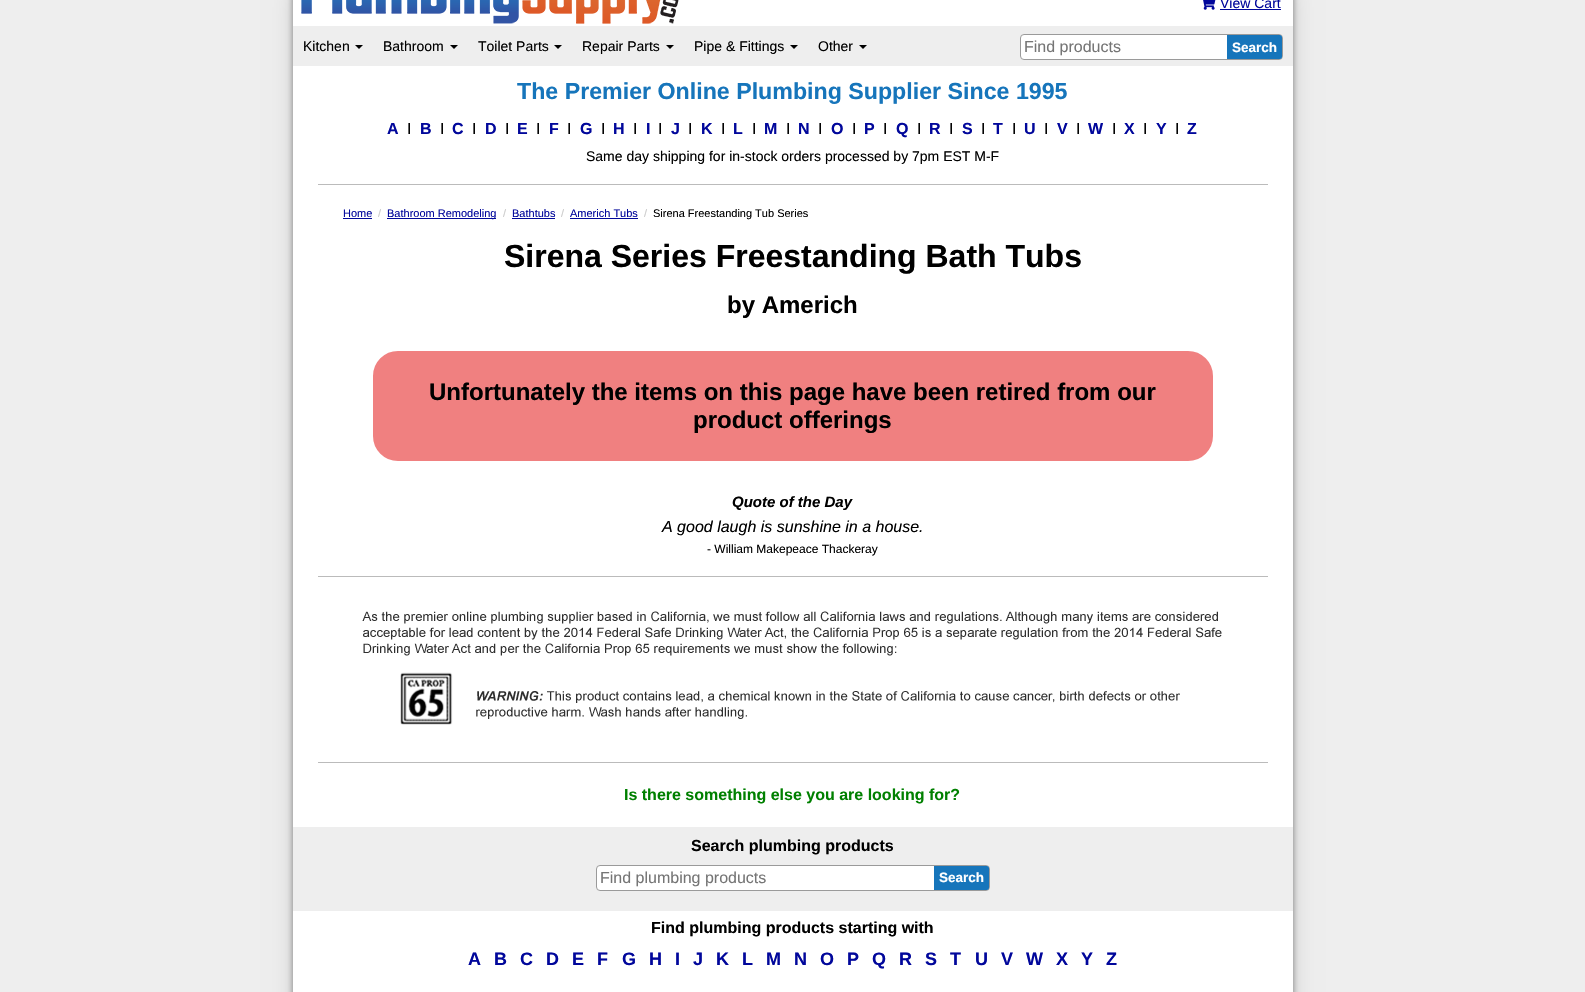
#include "include/core/SkBlurTypes.h"
#include "include/core/SkCanvas.h"
#include "include/core/SkData.h"
#include "include/core/SkFont.h"
#include "include/core/SkFontMgr.h"
#include "include/core/SkImage.h"
#include "include/core/SkMaskFilter.h"
#include "include/core/SkPaint.h"
#include "include/core/SkPathBuilder.h"
#include "include/core/SkTextBlob.h"
#include "include/effects/SkDashPathEffect.h"
#include "include/effects/SkGradientShader.h"
#include "include/utils/SkParsePath.h"

extern sk_sp<SkFontMgr> fontMgr;

void draw(SkCanvas* canvas) {
  SkPaint p;
  p.setAntiAlias(true);
  canvas->clear(SkColorSetRGB(238, 238, 238));
  p.setColor(SkColorSetRGB(153, 153, 153));
  p.setMaskFilter(SkMaskFilter::MakeBlur(kNormal_SkBlurStyle, 15));
  canvas->drawRect(SkRect::MakeLTRB(305, -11, 1281, 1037), p);
  p.setMaskFilter(nullptr);
  p.setMaskFilter(SkMaskFilter::MakeBlur(kNormal_SkBlurStyle, 2.5f));
  canvas->drawRect(SkRect::MakeLTRB(292, -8, 1282, 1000), p);
  p.setMaskFilter(nullptr);
  p.setMaskFilter(SkMaskFilter::MakeBlur(kNormal_SkBlurStyle, 2.5f));
  canvas->drawRect(SkRect::MakeLTRB(304, -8, 1294, 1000), p);
  p.setMaskFilter(nullptr);
  p.setColor(SK_ColorWHITE);
  canvas->drawRect(SkRect::MakeLTRB(293, 0, 1293, 992), p);
  canvas->drawImageRect(SkImages::DeferredFromEncodedData(SkData::MakeFromFileName("images/1.png")), SkRect::MakeLTRB(301, 0, 679, 24), SkSamplingOptions());
  canvas->drawImageRect(SkImages::DeferredFromEncodedData(SkData::MakeFromFileName("images/2.png")), SkRect::MakeLTRB(1203, 0, 1216, 10), SkSamplingOptions());
  p.setColor(SkColorSetRGB(1, 7, 155));
  canvas->drawRect(SkRect::MakeLTRB(1220, 9, 1281, 10), p);
  p.setColor(SkColorSetRGB(238, 238, 238));
  canvas->drawRect(SkRect::MakeLTRB(293, 26, 1293, 66), p);
  p.setColor(SK_ColorBLACK);
  canvas->drawPath(SkPathBuilder().moveTo(355, 45).lineTo(363, 45).lineTo(359, 49).close().detach(), p);
  canvas->drawPath(SkPathBuilder().moveTo(450, 45).lineTo(458, 45).lineTo(454, 49).close().detach(), p);
  canvas->drawPath(SkPathBuilder().moveTo(554, 45).lineTo(562, 45).lineTo(558, 49).close().detach(), p);
  canvas->drawPath(SkPathBuilder().moveTo(666, 45).lineTo(674, 45).lineTo(670, 49).close().detach(), p);
  canvas->drawPath(SkPathBuilder().moveTo(790, 45).lineTo(798, 45).lineTo(794, 49).close().detach(), p);
  canvas->drawPath(SkPathBuilder().moveTo(859, 45).lineTo(867, 45).lineTo(863, 49).close().detach(), p);
  p.setColor(SK_ColorWHITE);
  canvas->drawRoundRect(SkRect::MakeLTRB(1020.5f, 34.5f, 1282.5f, 59.5f), 3.5f, 3.5f, p);
  p.setStyle(SkPaint::kStroke_Style);
  p.setStrokeWidth(1);
  p.setColor(SkColorSetRGB(154, 154, 154));
  canvas->drawRoundRect(SkRect::MakeLTRB(1020.5f, 34.5f, 1282.5f, 59.5f), 3.5f, 3.5f, p);
  p.setStyle(SkPaint::kFill_Style);
  p.setColor(SkColorSetRGB(22, 117, 187));
  canvas->drawPath(SkPathBuilder().moveTo(1227, 35).lineTo(1280, 35).cubicTo(1281, 35, 1282, 36, 1282, 37).lineTo(1282, 57).cubicTo(1282, 58, 1281, 59, 1280, 59).lineTo(1227, 59).close().detach(), p);
  p.setColor(SkColorSetRGB(187, 187, 187));
  canvas->drawRect(SkRect::MakeLTRB(318, 184, 1268, 185), p);
  p.setColor(SkColorSetRGB(1, 7, 155));
  canvas->drawRect(SkRect::MakeLTRB(343, 218, 372, 219), p);
  canvas->drawRect(SkRect::MakeLTRB(387, 218, 496, 219), p);
  canvas->drawRect(SkRect::MakeLTRB(512, 218, 555, 219), p);
  canvas->drawRect(SkRect::MakeLTRB(570, 218, 638, 219), p);
  p.setColor(SkColorSetRGB(240, 128, 128));
  canvas->drawRoundRect(SkRect::MakeLTRB(374.5f, 352.5f, 1211.5f, 459.5f), 23.5f, 23.5f, p);
  p.setStyle(SkPaint::kStroke_Style);
  p.setStrokeWidth(3);
  canvas->drawRoundRect(SkRect::MakeLTRB(374.5f, 352.5f, 1211.5f, 459.5f), 23.5f, 23.5f, p);
  p.setStyle(SkPaint::kFill_Style);
  p.setColor(SkColorSetRGB(187, 187, 187));
  canvas->drawRect(SkRect::MakeLTRB(318, 576, 1268, 577), p);
  canvas->drawImageRect(SkImages::DeferredFromEncodedData(SkData::MakeFromFileName("images/3.png")), SkRect::MakeLTRB(362, 611, 1222, 725), SkSamplingOptions());
  canvas->drawRect(SkRect::MakeLTRB(318, 762, 1268, 763), p);
  p.setColor(SkColorSetRGB(238, 238, 238));
  canvas->drawRect(SkRect::MakeLTRB(293, 827, 1293, 911), p);
  p.setColor(SK_ColorWHITE);
  canvas->drawRoundRect(SkRect::MakeLTRB(596.5f, 865.5f, 989.5f, 890.5f), 3.5f, 3.5f, p);
  p.setStyle(SkPaint::kStroke_Style);
  p.setStrokeWidth(1);
  p.setColor(SkColorSetRGB(154, 154, 154));
  canvas->drawRoundRect(SkRect::MakeLTRB(596.5f, 865.5f, 989.5f, 890.5f), 3.5f, 3.5f, p);
  p.setStyle(SkPaint::kFill_Style);
  p.setColor(SkColorSetRGB(22, 117, 187));
  canvas->drawPath(SkPathBuilder().moveTo(934, 866).lineTo(987, 866).cubicTo(988, 866, 989, 867, 989, 868).lineTo(989, 888).cubicTo(989, 889, 988, 890, 987, 890).lineTo(934, 890).close().detach(), p);
  SkFont font1(fontMgr->matchFamilyStyle("Liberation Sans", SkFontStyle::Normal()), 14);
  font1.setSubpixel(true);
  p.setColor(SkColorSetRGB(1, 7, 155));
  canvas->drawString("View Cart", 1220, 8, font1, p);
  p.setColor(SK_ColorBLACK);
  canvas->drawString("Kitchen", 303, 51, font1, p);
  canvas->drawString("Bathroom", 383, 51, font1, p);
  canvas->drawString("Toilet Parts", 478, 51, font1, p);
  canvas->drawString("Repair Parts", 582, 51, font1, p);
  canvas->drawString("Pipe & Fittings", 694, 51, font1, p);
  canvas->drawString("Other", 818, 51, font1, p);
  SkFont font2(fontMgr->matchFamilyStyle("Liberation Sans", SkFontStyle::Normal()), 16);
  font2.setSubpixel(true);
  p.setColor(SkColorSetRGB(117, 117, 117));
  canvas->drawString("Find products", 1024, 52, font2, p);
  SkFont font3(fontMgr->matchFamilyStyle("Liberation Sans", SkFontStyle::Bold()), 13.5f);
  font3.setSubpixel(true);
  p.setColor(SK_ColorWHITE);
  canvas->drawString("Search", 1232, 52, font3, p);
  SkFont font4(fontMgr->matchFamilyStyle("Liberation Sans", SkFontStyle::Bold()), 23.2f);
  font4.setSubpixel(true);
  p.setColor(SkColorSetRGB(22, 117, 187));
  canvas->drawString("The Premier Online Plumbing Supplier Since 1995", 517, 99, font4, p);
  SkFont font5(fontMgr->matchFamilyStyle("Liberation Sans", SkFontStyle::Bold()), 16);
  font5.setSubpixel(true);
  p.setColor(SkColorSetRGB(1, 7, 155));
  canvas->drawString("A", 387, 134, font5, p);
  p.setColor(SK_ColorBLACK);
  canvas->drawString("I", 407, 134, font2, p);
  p.setColor(SkColorSetRGB(1, 7, 155));
  canvas->drawString("B", 420, 134, font5, p);
  p.setColor(SK_ColorBLACK);
  canvas->drawString("I", 440, 134, font2, p);
  p.setColor(SkColorSetRGB(1, 7, 155));
  canvas->drawString("C", 452, 134, font5, p);
  p.setColor(SK_ColorBLACK);
  canvas->drawString("I", 472, 134, font2, p);
  p.setColor(SkColorSetRGB(1, 7, 155));
  canvas->drawString("D", 485, 134, font5, p);
  p.setColor(SK_ColorBLACK);
  canvas->drawString("I", 505, 134, font2, p);
  p.setColor(SkColorSetRGB(1, 7, 155));
  canvas->drawString("E", 517, 134, font5, p);
  p.setColor(SK_ColorBLACK);
  canvas->drawString("I", 536, 134, font2, p);
  p.setColor(SkColorSetRGB(1, 7, 155));
  canvas->drawString("F", 549, 134, font5, p);
  p.setColor(SK_ColorBLACK);
  canvas->drawString("I", 567, 134, font2, p);
  p.setColor(SkColorSetRGB(1, 7, 155));
  canvas->drawString("G", 580, 134, font5, p);
  p.setColor(SK_ColorBLACK);
  canvas->drawString("I", 601, 134, font2, p);
  p.setColor(SkColorSetRGB(1, 7, 155));
  canvas->drawString("H", 613, 134, font5, p);
  p.setColor(SK_ColorBLACK);
  canvas->drawString("I", 633, 134, font2, p);
  p.setColor(SkColorSetRGB(1, 7, 155));
  canvas->drawString("I", 646, 134, font5, p);
  p.setColor(SK_ColorBLACK);
  canvas->drawString("I", 658, 134, font2, p);
  p.setColor(SkColorSetRGB(1, 7, 155));
  canvas->drawString("J", 671, 134, font5, p);
  p.setColor(SK_ColorBLACK);
  canvas->drawString("I", 688, 134, font2, p);
  p.setColor(SkColorSetRGB(1, 7, 155));
  canvas->drawString("K", 701, 134, font5, p);
  p.setColor(SK_ColorBLACK);
  canvas->drawString("I", 721, 134, font2, p);
  p.setColor(SkColorSetRGB(1, 7, 155));
  canvas->drawString("L", 733, 134, font5, p);
  p.setColor(SK_ColorBLACK);
  canvas->drawString("I", 752, 134, font2, p);
  p.setColor(SkColorSetRGB(1, 7, 155));
  canvas->drawString("M", 764, 134, font5, p);
  p.setColor(SK_ColorBLACK);
  canvas->drawString("I", 786, 134, font2, p);
  p.setColor(SkColorSetRGB(1, 7, 155));
  canvas->drawString("N", 798, 134, font5, p);
  p.setColor(SK_ColorBLACK);
  canvas->drawString("I", 818, 134, font2, p);
  p.setColor(SkColorSetRGB(1, 7, 155));
  canvas->drawString("O", 831, 134, font5, p);
  p.setColor(SK_ColorBLACK);
  canvas->drawString("I", 852, 134, font2, p);
  p.setColor(SkColorSetRGB(1, 7, 155));
  canvas->drawString("P", 864, 134, font5, p);
  p.setColor(SK_ColorBLACK);
  canvas->drawString("I", 883, 134, font2, p);
  p.setColor(SkColorSetRGB(1, 7, 155));
  canvas->drawString("Q", 896, 134, font5, p);
  p.setColor(SK_ColorBLACK);
  canvas->drawString("I", 917, 134, font2, p);
  p.setColor(SkColorSetRGB(1, 7, 155));
  canvas->drawString("R", 929, 134, font5, p);
  p.setColor(SK_ColorBLACK);
  canvas->drawString("I", 949, 134, font2, p);
  p.setColor(SkColorSetRGB(1, 7, 155));
  canvas->drawString("S", 962, 134, font5, p);
  p.setColor(SK_ColorBLACK);
  canvas->drawString("I", 981, 134, font2, p);
  p.setColor(SkColorSetRGB(1, 7, 155));
  canvas->drawString("T", 993, 134, font5, p);
  p.setColor(SK_ColorBLACK);
  canvas->drawString("I", 1012, 134, font2, p);
  p.setColor(SkColorSetRGB(1, 7, 155));
  canvas->drawString("U", 1024, 134, font5, p);
  p.setColor(SK_ColorBLACK);
  canvas->drawString("I", 1044, 134, font2, p);
  p.setColor(SkColorSetRGB(1, 7, 155));
  canvas->drawString("V", 1057, 134, font5, p);
  p.setColor(SK_ColorBLACK);
  canvas->drawString("I", 1076, 134, font2, p);
  p.setColor(SkColorSetRGB(1, 7, 155));
  canvas->drawString("W", 1088, 134, font5, p);
  p.setColor(SK_ColorBLACK);
  canvas->drawString("I", 1112, 134, font2, p);
  p.setColor(SkColorSetRGB(1, 7, 155));
  canvas->drawString("X", 1124, 134, font5, p);
  p.setColor(SK_ColorBLACK);
  canvas->drawString("I", 1143, 134, font2, p);
  p.setColor(SkColorSetRGB(1, 7, 155));
  canvas->drawString("Y", 1156, 134, font5, p);
  p.setColor(SK_ColorBLACK);
  canvas->drawString("I", 1175, 134, font2, p);
  p.setColor(SkColorSetRGB(1, 7, 155));
  canvas->drawString("Z", 1187, 134, font5, p);
  p.setColor(SK_ColorBLACK);
  canvas->drawString("Same day shipping for in-stock orders processed by 7pm EST M-F", 586, 161, font1, p);
  SkFont font6(fontMgr->matchFamilyStyle("Liberation Sans", SkFontStyle::Normal()), 11);
  font6.setSubpixel(true);
  p.setColor(SkColorSetRGB(1, 7, 155));
  canvas->drawString("Home", 343, 217, font6, p);
  p.setColor(SkColorSetRGB(204, 204, 204));
  canvas->drawString("/", 378, 217, font6, p);
  p.setColor(SkColorSetRGB(1, 7, 155));
  canvas->drawString("Bathroom Remodeling", 387, 217, font6, p);
  p.setColor(SkColorSetRGB(204, 204, 204));
  canvas->drawString("/", 503, 217, font6, p);
  p.setColor(SkColorSetRGB(1, 7, 155));
  canvas->drawString("Bathtubs", 512, 217, font6, p);
  p.setColor(SkColorSetRGB(204, 204, 204));
  canvas->drawString("/", 561, 217, font6, p);
  p.setColor(SkColorSetRGB(1, 7, 155));
  canvas->drawString("Americh Tubs", 570, 217, font6, p);
  p.setColor(SkColorSetRGB(204, 204, 204));
  canvas->drawString("/", 644, 217, font6, p);
  p.setColor(SK_ColorBLACK);
  canvas->drawString("Sirena Freestanding Tub Series", 653, 217, font6, p);
  SkFont font7(fontMgr->matchFamilyStyle("Liberation Sans", SkFontStyle::Bold()), 32);
  font7.setSubpixel(true);
  canvas->drawString("Sirena Series Freestanding Bath Tubs", 504, 267, font7, p);
  SkFont font8(fontMgr->matchFamilyStyle("Liberation Sans", SkFontStyle::Bold()), 24);
  font8.setSubpixel(true);
  canvas->drawString("by Americh", 727, 313, font8, p);
  canvas->drawString("Unfortunately the items on this page have been retired from our", 429, 400, font8, p);
  canvas->drawString("product offerings", 693, 428, font8, p);
  SkFont font9(fontMgr->matchFamilyStyle("Liberation Sans", SkFontStyle::BoldItalic()), 15);
  font9.setSubpixel(true);
  canvas->drawString("Quote of the Day", 732, 507, font9, p);
  SkFont font10(fontMgr->matchFamilyStyle("Liberation Sans", SkFontStyle::Italic()), 16);
  font10.setSubpixel(true);
  canvas->drawString("A good laugh is sunshine in a house.", 662, 532, font10, p);
  SkFont font11(fontMgr->matchFamilyStyle("Liberation Sans", SkFontStyle::Normal()), 12);
  font11.setSubpixel(true);
  canvas->drawString("- William Makepeace Thackeray", 707, 553, font11, p);
  p.setColor(SkColorSetRGB(0, 128, 0));
  canvas->drawString("Is there something else you are looking for?", 624, 800, font5, p);
  p.setColor(SK_ColorBLACK);
  canvas->drawString("Search plumbing products", 691, 851, font5, p);
  p.setColor(SkColorSetRGB(117, 117, 117));
  canvas->drawString("Find plumbing products", 600, 883, font2, p);
  p.setColor(SK_ColorWHITE);
  canvas->drawString("Search", 939, 882, font3, p);
  p.setColor(SK_ColorBLACK);
  canvas->drawString("Find plumbing products starting with", 651, 933, font5, p);
  SkFont font12(fontMgr->matchFamilyStyle("Liberation Sans", SkFontStyle::Bold()), 18);
  font12.setSubpixel(true);
  p.setColor(SkColorSetRGB(1, 7, 155));
  canvas->drawString("A", 468, 965, font12, p);
  canvas->drawString("B", 494, 965, font12, p);
  canvas->drawString("C", 520, 965, font12, p);
  canvas->drawString("D", 546, 965, font12, p);
  canvas->drawString("E", 572, 965, font12, p);
  canvas->drawString("F", 597, 965, font12, p);
  canvas->drawString("G", 622, 965, font12, p);
  canvas->drawString("H", 649, 965, font12, p);
  canvas->drawString("I", 675, 965, font12, p);
  canvas->drawString("J", 693, 965, font12, p);
  canvas->drawString("K", 716, 965, font12, p);
  canvas->drawString("L", 742, 965, font12, p);
  canvas->drawString("M", 766, 965, font12, p);
  canvas->drawString("N", 794, 965, font12, p);
  canvas->drawString("O", 820, 965, font12, p);
  canvas->drawString("P", 847, 965, font12, p);
  canvas->drawString("Q", 872, 965, font12, p);
  canvas->drawString("R", 899, 965, font12, p);
  canvas->drawString("S", 925, 965, font12, p);
  canvas->drawString("T", 950, 965, font12, p);
  canvas->drawString("U", 975, 965, font12, p);
  canvas->drawString("V", 1001, 965, font12, p);
  canvas->drawString("W", 1026, 965, font12, p);
  canvas->drawString("X", 1056, 965, font12, p);
  canvas->drawString("Y", 1081, 965, font12, p);
  canvas->drawString("Z", 1106, 965, font12, p);
}
